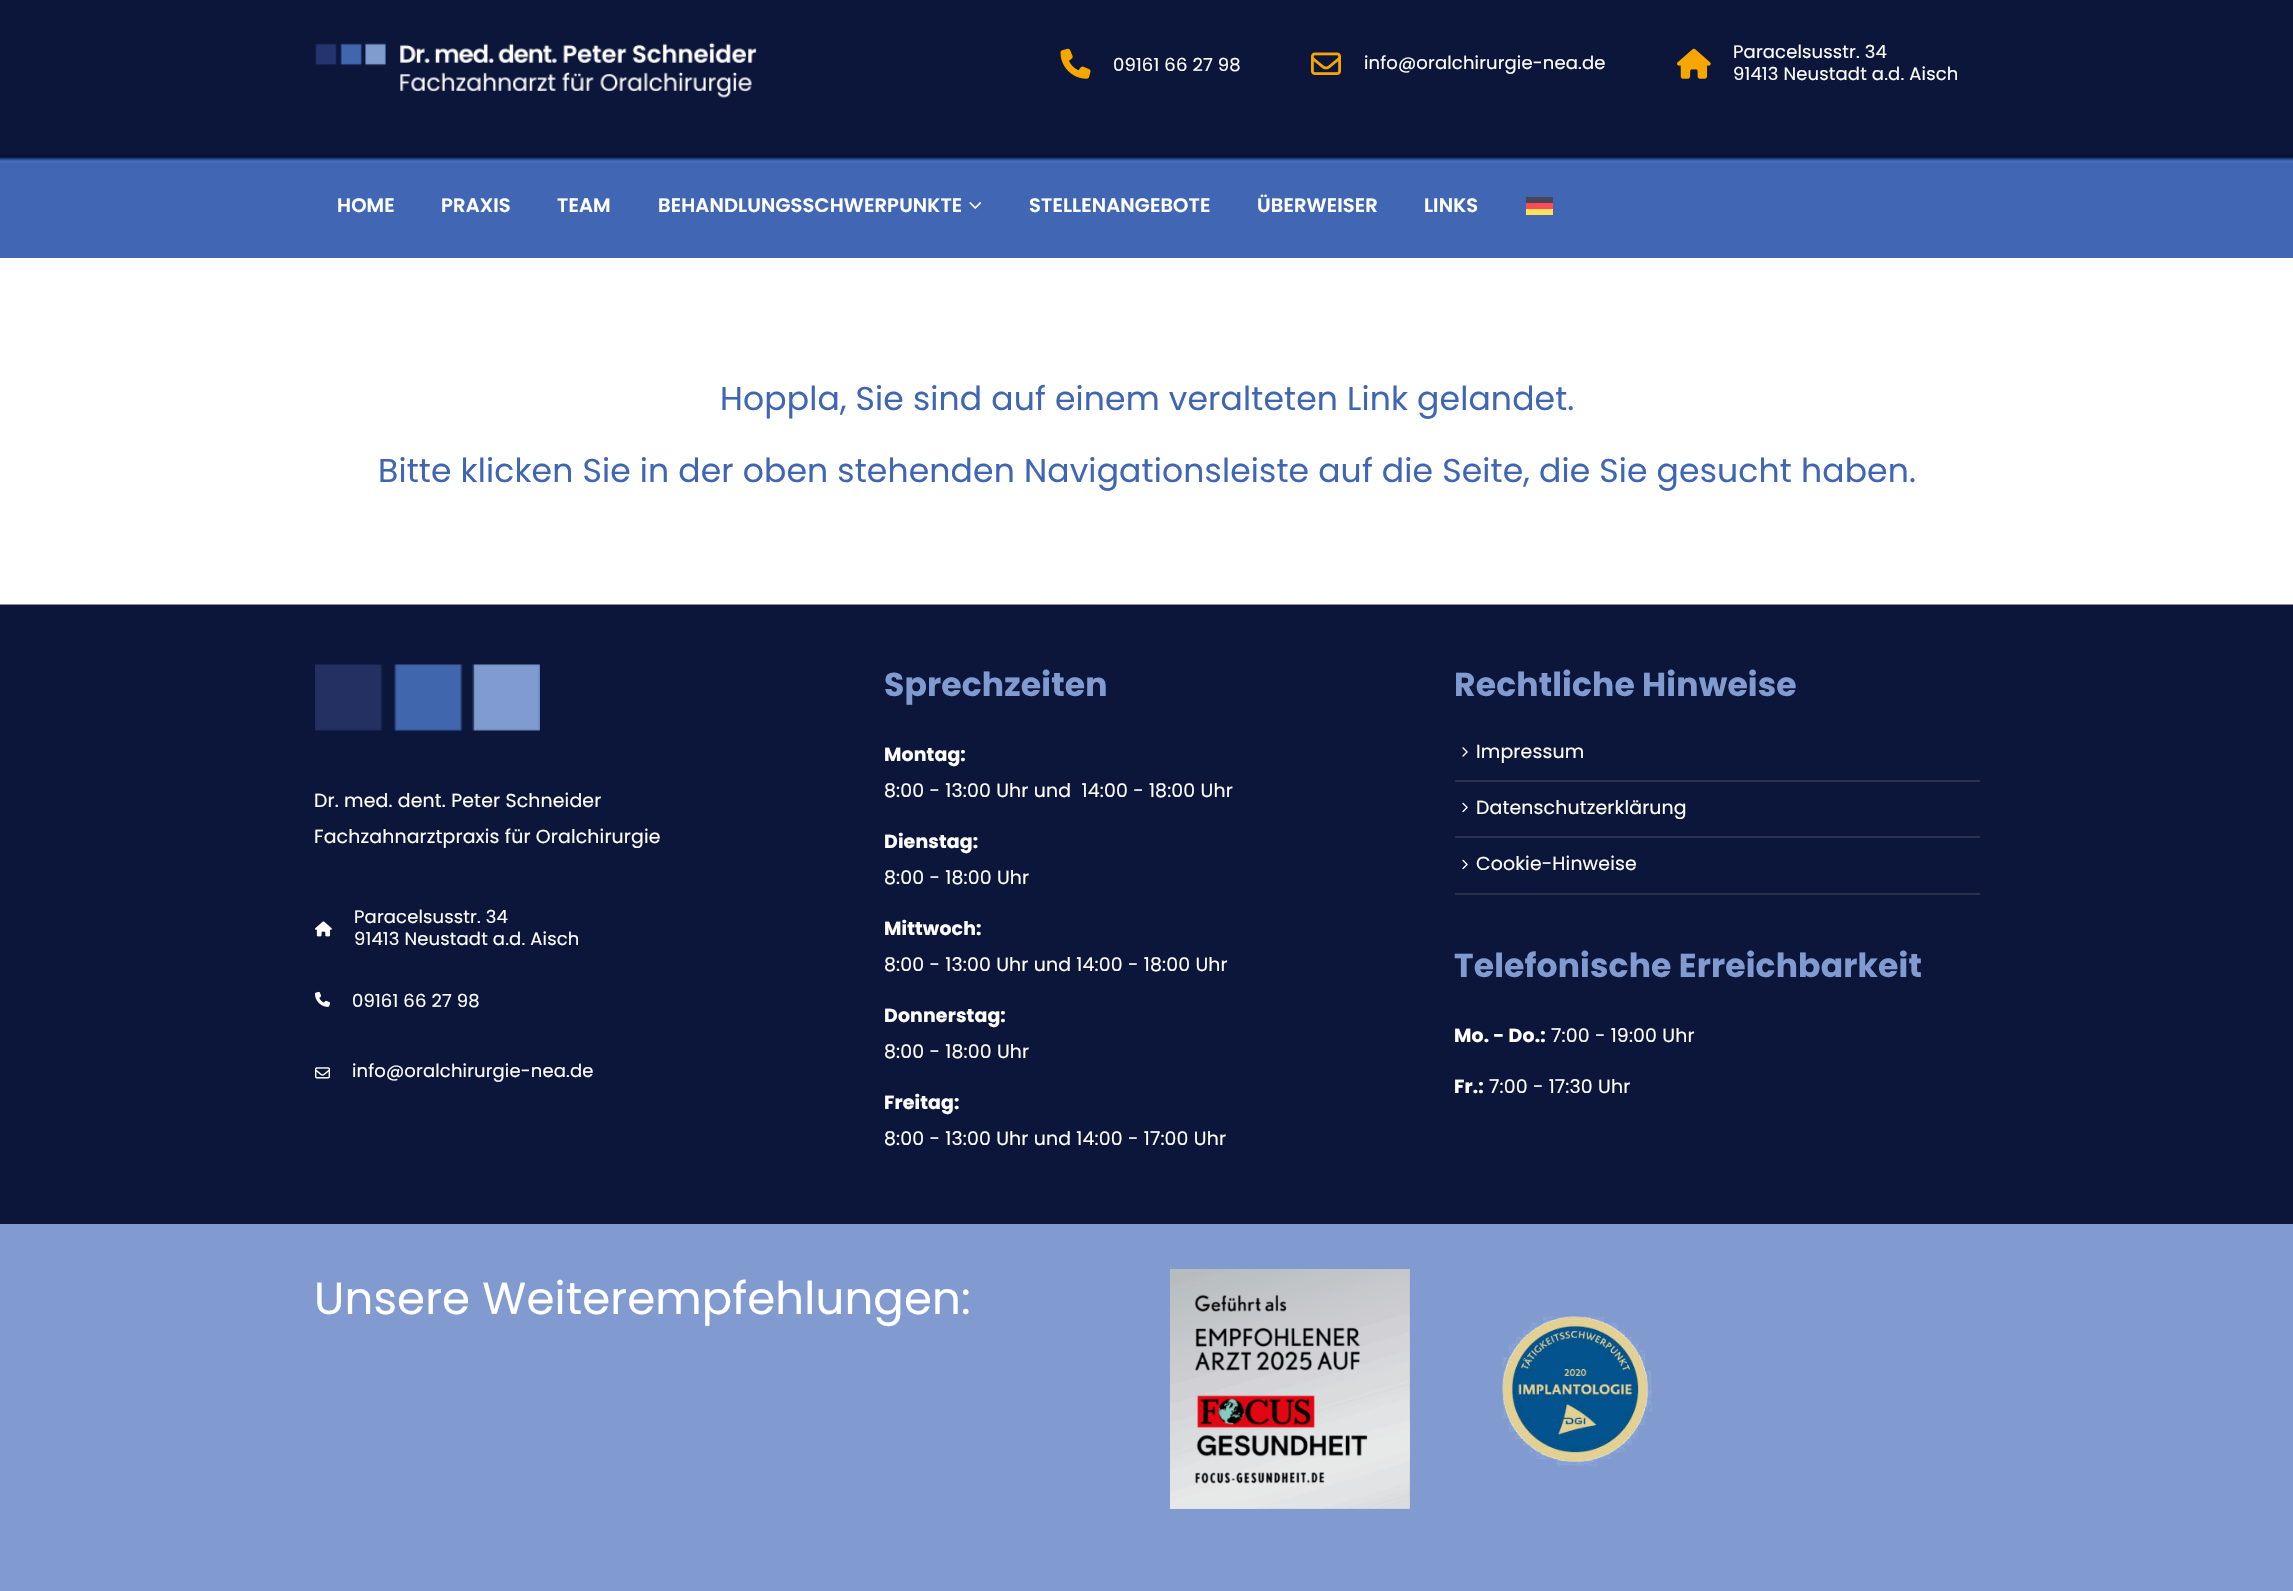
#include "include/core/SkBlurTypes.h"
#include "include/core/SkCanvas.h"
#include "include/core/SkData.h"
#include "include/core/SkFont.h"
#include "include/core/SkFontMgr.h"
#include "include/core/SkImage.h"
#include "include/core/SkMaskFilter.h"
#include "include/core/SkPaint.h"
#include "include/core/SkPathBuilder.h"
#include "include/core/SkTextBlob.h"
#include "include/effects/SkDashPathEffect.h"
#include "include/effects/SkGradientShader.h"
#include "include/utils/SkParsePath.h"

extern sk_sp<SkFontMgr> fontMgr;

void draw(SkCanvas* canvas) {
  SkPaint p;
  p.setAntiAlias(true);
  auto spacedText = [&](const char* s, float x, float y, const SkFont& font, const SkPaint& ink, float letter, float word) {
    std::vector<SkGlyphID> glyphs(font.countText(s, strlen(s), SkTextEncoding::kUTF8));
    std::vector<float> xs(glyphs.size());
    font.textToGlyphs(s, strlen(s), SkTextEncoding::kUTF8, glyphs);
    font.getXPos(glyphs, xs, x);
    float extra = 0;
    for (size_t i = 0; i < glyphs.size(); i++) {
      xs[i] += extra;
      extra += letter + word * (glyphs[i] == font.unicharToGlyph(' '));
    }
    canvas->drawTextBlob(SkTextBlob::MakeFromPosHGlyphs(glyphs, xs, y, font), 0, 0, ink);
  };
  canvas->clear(SK_ColorWHITE);
  canvas->drawImageRect(SkImages::DeferredFromEncodedData(SkData::MakeFromFileName("images/1.png")), SkRect::MakeLTRB(0, 0, 2293, 258), SkSamplingOptions());
  canvas->drawImageRect(SkImages::DeferredFromEncodedData(SkData::MakeFromFileName("images/2.png")), SkRect::MakeLTRB(315, 42, 757, 98), SkSamplingOptions());
  canvas->drawImageRect(SkImages::DeferredFromEncodedData(SkData::MakeFromFileName("images/3.png")), SkRect::MakeLTRB(1060, 48, 1091, 79), SkSamplingOptions());
  canvas->drawImageRect(SkImages::DeferredFromEncodedData(SkData::MakeFromFileName("images/4.png")), SkRect::MakeLTRB(1311, 52, 1341, 75), SkSamplingOptions());
  canvas->drawImageRect(SkImages::DeferredFromEncodedData(SkData::MakeFromFileName("images/5.png")), SkRect::MakeLTRB(1677, 48, 1711, 79), SkSamplingOptions());
  canvas->drawImageRect(SkImages::DeferredFromEncodedData(SkData::MakeFromFileName("images/6.png")), SkRect::MakeLTRB(969, 202, 982, 209), SkSamplingOptions());
  p.setColor(SkColorSetRGB(70, 70, 85));
  canvas->drawRect(SkRect::MakeLTRB(1526, 197, 1553, 203), p);
  p.setColor(SkColorSetRGB(255, 75, 85));
  canvas->drawRect(SkRect::MakeLTRB(1526, 203, 1553, 209), p);
  p.setColor(SkColorSetRGB(255, 225, 90));
  canvas->drawRect(SkRect::MakeLTRB(1526, 209, 1553, 215), p);
  canvas->drawImageRect(SkImages::DeferredFromEncodedData(SkData::MakeFromFileName("images/7.png")), SkRect::MakeLTRB(0, 604, 2293, 605), SkSamplingOptions());
  p.setColor(SkColorSetRGB(11, 22, 58));
  canvas->drawRect(SkRect::MakeLTRB(0, 605, 2293, 1224), p);
  canvas->drawImageRect(SkImages::DeferredFromEncodedData(SkData::MakeFromFileName("images/8.png")), SkRect::MakeLTRB(315, 664, 540, 731), SkSamplingOptions());
  canvas->drawImageRect(SkImages::DeferredFromEncodedData(SkData::MakeFromFileName("images/9.png")), SkRect::MakeLTRB(315, 921, 332, 937), SkSamplingOptions());
  canvas->drawImageRect(SkImages::DeferredFromEncodedData(SkData::MakeFromFileName("images/10.png")), SkRect::MakeLTRB(315, 991, 330, 1007), SkSamplingOptions());
  canvas->drawImageRect(SkImages::DeferredFromEncodedData(SkData::MakeFromFileName("images/11.png")), SkRect::MakeLTRB(315, 1067, 330, 1079), SkSamplingOptions());
  p.setColor(SkColorSetRGB(43, 51, 76));
  canvas->drawRect(SkRect::MakeLTRB(1455, 893, 1980, 895), p);
  canvas->drawImageRect(SkImages::DeferredFromEncodedData(SkData::MakeFromFileName("images/12.png")), SkRect::MakeLTRB(1462, 747, 1468, 757), SkSamplingOptions());
  canvas->drawRect(SkRect::MakeLTRB(1455, 780, 1980, 782), p);
  canvas->drawImageRect(SkImages::DeferredFromEncodedData(SkData::MakeFromFileName("images/13.png")), SkRect::MakeLTRB(1462, 802, 1468, 813), SkSamplingOptions());
  canvas->drawRect(SkRect::MakeLTRB(1455, 836, 1980, 838), p);
  canvas->drawImageRect(SkImages::DeferredFromEncodedData(SkData::MakeFromFileName("images/13.png")), SkRect::MakeLTRB(1462, 859, 1468, 870), SkSamplingOptions());
  p.setColor(SkColorSetRGB(129, 155, 209));
  canvas->drawRect(SkRect::MakeLTRB(0, 1224, 2293, 1591), p);
  canvas->drawImageRect(SkImages::DeferredFromEncodedData(SkData::MakeFromFileName("images/14.png")), SkRect::MakeLTRB(1170, 1269, 1410, 1509), SkSamplingOptions());
  canvas->drawImageRect(SkImages::DeferredFromEncodedData(SkData::MakeFromFileName("images/15.png")), SkRect::MakeLTRB(1502, 1316, 1652, 1466), SkSamplingOptions());
  SkFont font1(fontMgr->matchFamilyStyle("Poppins", SkFontStyle::Normal()), 18);
  font1.setSubpixel(true);
  p.setColor(SK_ColorWHITE);
  spacedText("09161 66 27 98", 1113, 71, font1, p, 0.15f, 0);
  spacedText("info@oralchirurgie-nea.de", 1364, 69, font1, p, 0.15f, 0);
  spacedText("Paracelsusstr. 34", 1733, 58, font1, p, 0.15f, 0);
  spacedText("91413 Neustadt a.d. Aisch", 1733, 80, font1, p, 0.15f, 0);
  SkFont font2(fontMgr->matchFamilyStyle("Poppins", SkFontStyle(600, SkFontStyle::kNormal_Width, SkFontStyle::kUpright_Slant)), 19.5f);
  font2.setSubpixel(true);
  spacedText("HOME", 337, 212, font2, p, 0.15f, 0);
  spacedText("PRAXIS", 441, 212, font2, p, 0.15f, 0);
  spacedText("TEAM", 557, 212, font2, p, 0.15f, 0);
  spacedText("BEHANDLUNGSSCHWERPUNKTE", 658, 212, font2, p, 0.15f, 0);
  spacedText("STELLENANGEBOTE", 1029, 212, font2, p, 0.15f, 0);
  spacedText("ÜBERWEISER", 1257, 212, font2, p, 0.15f, 0);
  spacedText("LINKS", 1424, 212, font2, p, 0.15f, 0);
  SkFont font3(fontMgr->matchFamilyStyle("Poppins", SkFontStyle::Normal()), 33);
  font3.setSubpixel(true);
  p.setColor(SkColorSetRGB(64, 102, 179));
  spacedText("Hoppla, Sie sind auf einem veralteten Link gelandet.", 720, 410, font3, p, 0.15f, 0);
  spacedText("Bitte klicken Sie in der oben stehenden Navigationsleiste auf die Seite, die Sie gesucht haben.", 378, 482, font3, p, 0.15f, 0);
  SkFont font4(fontMgr->matchFamilyStyle("Poppins", SkFontStyle::Normal()), 18.9f);
  font4.setSubpixel(true);
  p.setColor(SK_ColorWHITE);
  spacedText("Dr. med. dent. Peter Schneider", 314, 807, font4, p, 0.15f, 0);
  spacedText("Fachzahnarztpraxis für Oralchirurgie", 314, 843, font4, p, 0.15f, 0);
  spacedText("Paracelsusstr. 34", 354, 923, font1, p, 0.15f, 0);
  spacedText("91413 Neustadt a.d. Aisch", 354, 945, font1, p, 0.15f, 0);
  spacedText("09161 66 27 98", 352, 1007, font1, p, 0.15f, 0);
  spacedText("info@oralchirurgie-nea.de", 352, 1077, font1, p, 0.15f, 0);
  SkFont font5(fontMgr->matchFamilyStyle("Poppins", SkFontStyle::Bold()), 33);
  font5.setSubpixel(true);
  p.setColor(SkColorSetRGB(129, 155, 209));
  spacedText("Sprechzeiten", 884, 696, font5, p, 0.15f, 0);
  SkFont font6(fontMgr->matchFamilyStyle("Poppins", SkFontStyle::Bold()), 18.9f);
  font6.setSubpixel(true);
  p.setColor(SK_ColorWHITE);
  spacedText("Montag:", 884, 761, font6, p, 0.15f, 0);
  spacedText("8:00 - 13:00 Uhr und  14:00 - 18:00 Uhr", 884, 797, font4, p, 0.15f, 0);
  spacedText("Dienstag:", 884, 848, font6, p, 0.15f, 0);
  spacedText("8:00 - 18:00 Uhr", 884, 884, font4, p, 0.15f, 0);
  spacedText("Mittwoch:", 884, 935, font6, p, 0.15f, 0);
  spacedText("8:00 - 13:00 Uhr und 14:00 - 18:00 Uhr", 884, 971, font4, p, 0.15f, 0);
  spacedText("Donnerstag:", 884, 1022, font6, p, 0.15f, 0);
  spacedText("8:00 - 18:00 Uhr", 884, 1058, font4, p, 0.15f, 0);
  spacedText("Freitag:", 884, 1109, font6, p, 0.15f, 0);
  spacedText("8:00 - 13:00 Uhr und 14:00 - 17:00 Uhr", 884, 1145, font4, p, 0.15f, 0);
  p.setColor(SkColorSetRGB(129, 155, 209));
  spacedText("Rechtliche Hinweise", 1454, 696, font5, p, 0.15f, 0);
  p.setColor(SK_ColorWHITE);
  spacedText("Impressum", 1476, 758, font4, p, 0.15f, 0);
  spacedText("Datenschutzerklärung", 1476, 814, font4, p, 0.15f, 0);
  spacedText("Cookie-Hinweise", 1476, 870, font4, p, 0.15f, 0);
  p.setColor(SkColorSetRGB(129, 155, 209));
  spacedText("Telefonische Erreichbarkeit", 1454, 977, font5, p, 0.15f, 0);
  p.setColor(SK_ColorWHITE);
  spacedText("Mo. - Do.:", 1454, 1042, font6, p, 0.15f, 0);
  spacedText("7:00 - 19:00 Uhr", 1551, 1042, font4, p, 0.15f, 0);
  spacedText("Fr.:", 1454, 1093, font6, p, 0.15f, 0);
  spacedText("7:00 - 17:30 Uhr", 1489, 1093, font4, p, 0.15f, 0);
  SkFont font7(fontMgr->matchFamilyStyle("Poppins", SkFontStyle::Normal()), 45);
  font7.setSubpixel(true);
  spacedText("Unsere Weiterempfehlungen:", 314, 1314, font7, p, 0.15f, 0);
}
